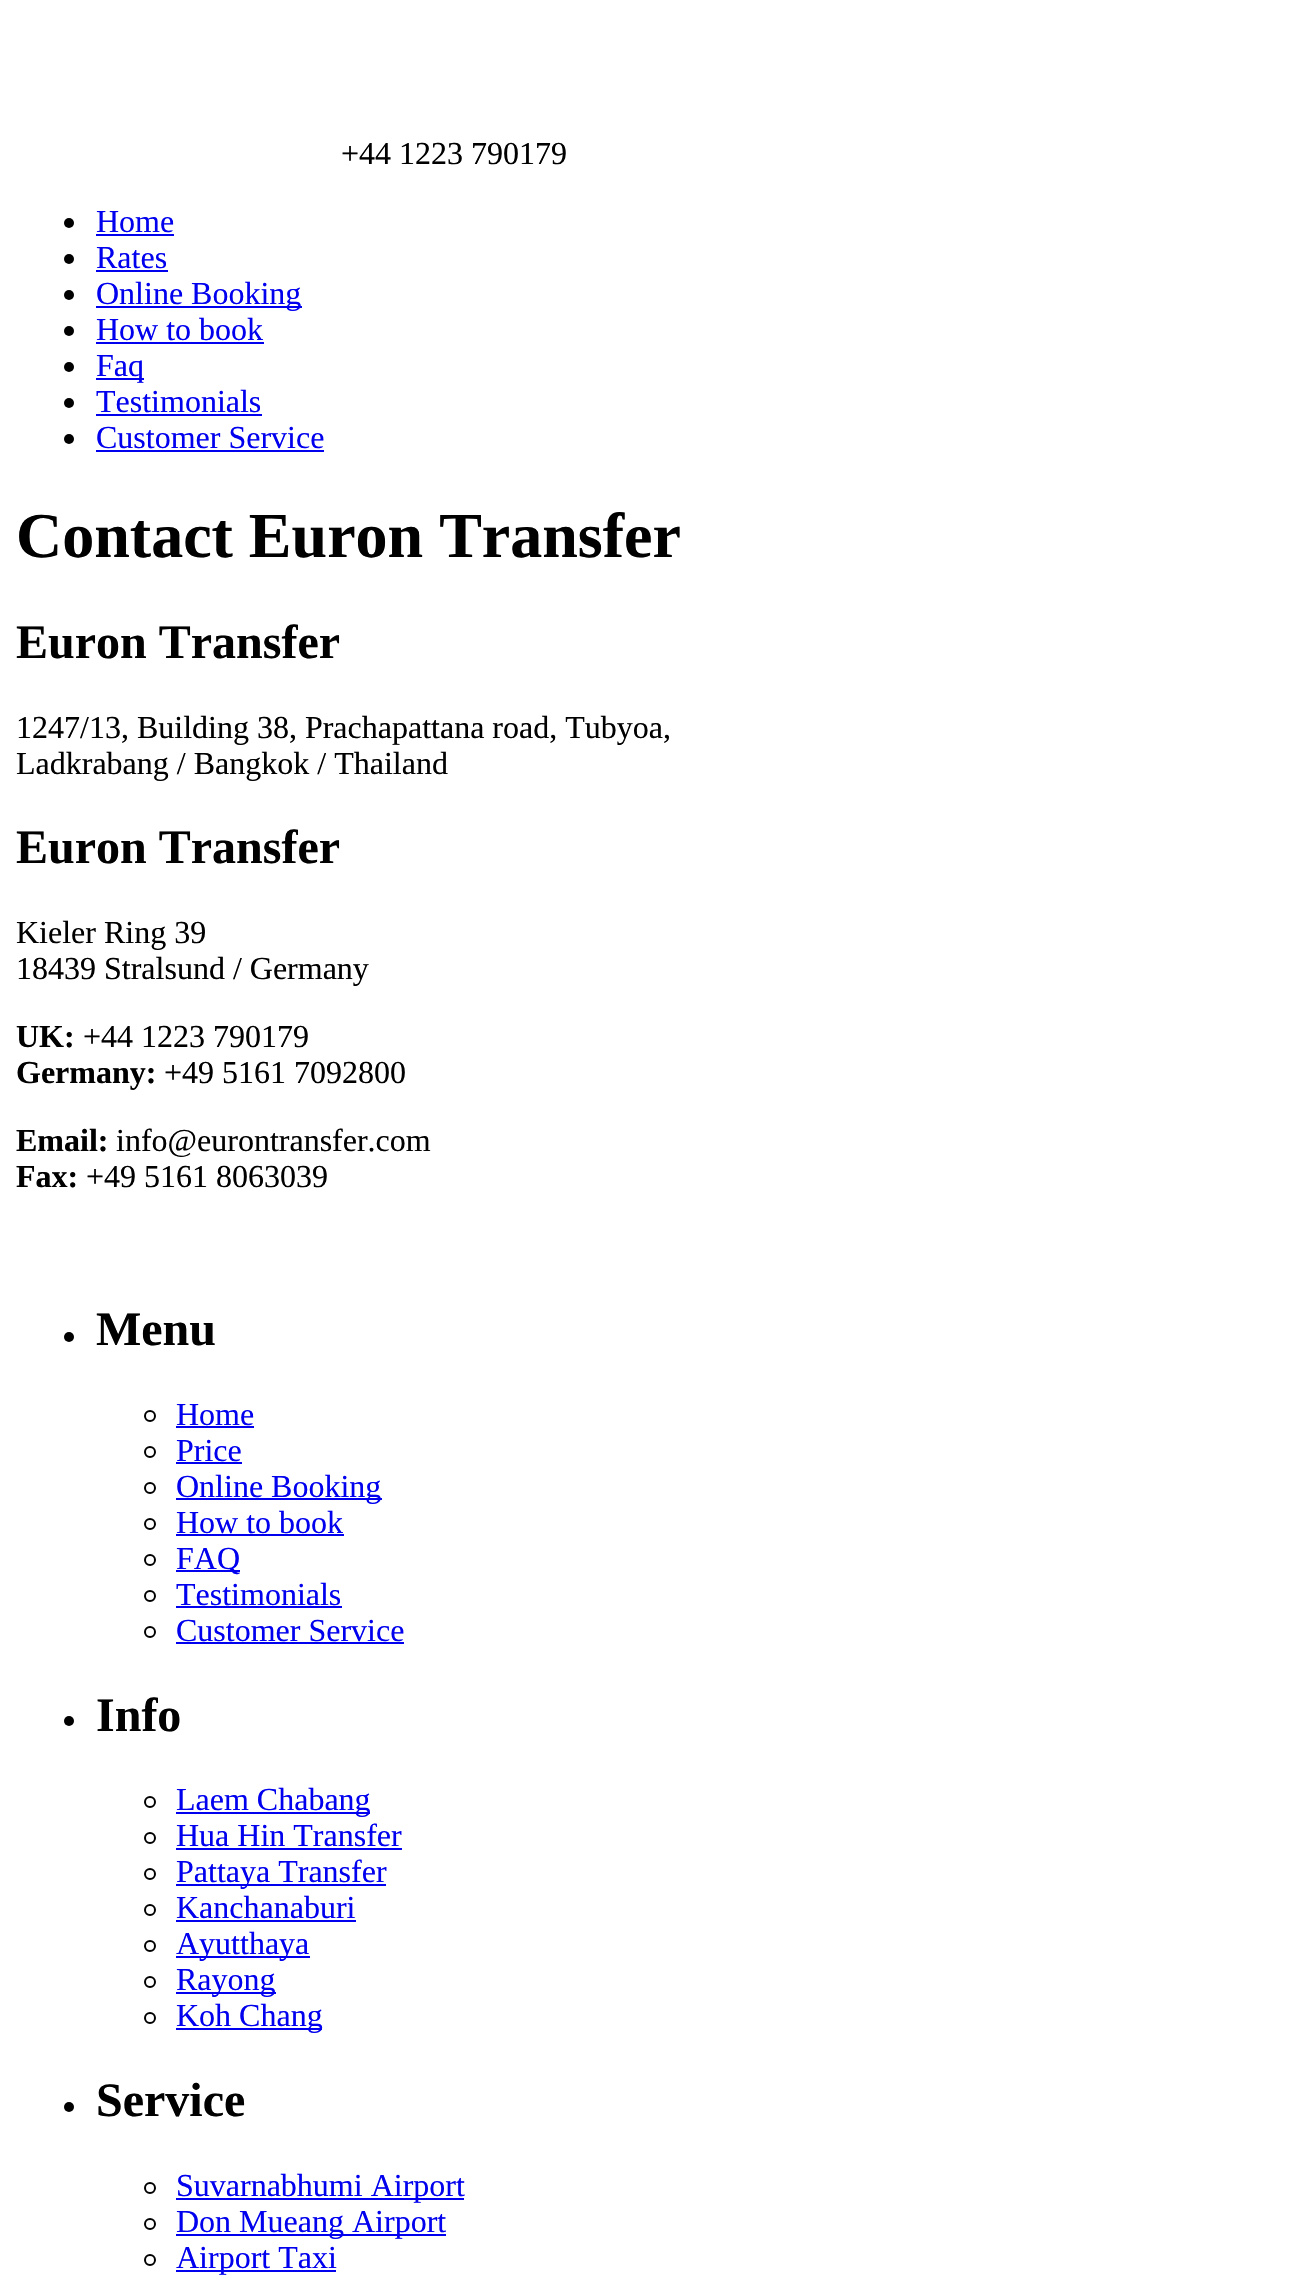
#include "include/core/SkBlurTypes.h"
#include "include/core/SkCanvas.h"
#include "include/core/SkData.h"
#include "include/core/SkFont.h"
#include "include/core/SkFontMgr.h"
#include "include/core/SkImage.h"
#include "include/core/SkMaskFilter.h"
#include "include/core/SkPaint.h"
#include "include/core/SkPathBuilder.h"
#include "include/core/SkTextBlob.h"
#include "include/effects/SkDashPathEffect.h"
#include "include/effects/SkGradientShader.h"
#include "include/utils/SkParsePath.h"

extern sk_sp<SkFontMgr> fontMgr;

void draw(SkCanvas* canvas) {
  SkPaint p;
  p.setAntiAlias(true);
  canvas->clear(SK_ColorWHITE);
  p.setColor(SK_ColorBLACK);
  canvas->drawCircle(69, 223, 5, p);
  p.setColor(SkColorSetRGB(0, 0, 238));
  canvas->drawRect(SkRect::MakeLTRB(96, 234, 174, 236), p);
  p.setColor(SK_ColorBLACK);
  canvas->drawCircle(69, 259, 5, p);
  p.setColor(SkColorSetRGB(0, 0, 238));
  canvas->drawRect(SkRect::MakeLTRB(96, 270, 168, 272), p);
  p.setColor(SK_ColorBLACK);
  canvas->drawCircle(69, 295, 5, p);
  p.setColor(SkColorSetRGB(0, 0, 238));
  canvas->drawRect(SkRect::MakeLTRB(96, 306, 302, 308), p);
  p.setColor(SK_ColorBLACK);
  canvas->drawCircle(69, 331, 5, p);
  p.setColor(SkColorSetRGB(0, 0, 238));
  canvas->drawRect(SkRect::MakeLTRB(96, 342, 264, 344), p);
  p.setColor(SK_ColorBLACK);
  canvas->drawCircle(69, 367, 5, p);
  p.setColor(SkColorSetRGB(0, 0, 238));
  canvas->drawRect(SkRect::MakeLTRB(96, 378, 144, 380), p);
  p.setColor(SK_ColorBLACK);
  canvas->drawCircle(69, 403, 5, p);
  p.setColor(SkColorSetRGB(0, 0, 238));
  canvas->drawRect(SkRect::MakeLTRB(96, 414, 262, 416), p);
  p.setColor(SK_ColorBLACK);
  canvas->drawCircle(69, 439, 5, p);
  p.setColor(SkColorSetRGB(0, 0, 238));
  canvas->drawRect(SkRect::MakeLTRB(96, 450, 324, 452), p);
  p.setColor(SK_ColorBLACK);
  canvas->drawCircle(69, 1337, 5, p);
  p.setStyle(SkPaint::kStroke_Style);
  p.setStrokeWidth(2);
  canvas->drawCircle(150, 1416, 5, p);
  p.setStyle(SkPaint::kFill_Style);
  p.setColor(SkColorSetRGB(0, 0, 238));
  canvas->drawRect(SkRect::MakeLTRB(176, 1426, 254, 1428), p);
  p.setStyle(SkPaint::kStroke_Style);
  p.setColor(SK_ColorBLACK);
  canvas->drawCircle(150, 1452, 5, p);
  p.setStyle(SkPaint::kFill_Style);
  p.setColor(SkColorSetRGB(0, 0, 238));
  canvas->drawRect(SkRect::MakeLTRB(176, 1462, 242, 1464), p);
  p.setStyle(SkPaint::kStroke_Style);
  p.setColor(SK_ColorBLACK);
  canvas->drawCircle(150, 1488, 5, p);
  p.setStyle(SkPaint::kFill_Style);
  p.setColor(SkColorSetRGB(0, 0, 238));
  canvas->drawRect(SkRect::MakeLTRB(176, 1498, 382, 1500), p);
  p.setStyle(SkPaint::kStroke_Style);
  p.setColor(SK_ColorBLACK);
  canvas->drawCircle(150, 1524, 5, p);
  p.setStyle(SkPaint::kFill_Style);
  p.setColor(SkColorSetRGB(0, 0, 238));
  canvas->drawRect(SkRect::MakeLTRB(176, 1534, 344, 1536), p);
  p.setStyle(SkPaint::kStroke_Style);
  p.setColor(SK_ColorBLACK);
  canvas->drawCircle(150, 1560, 5, p);
  p.setStyle(SkPaint::kFill_Style);
  p.setColor(SkColorSetRGB(0, 0, 238));
  canvas->drawRect(SkRect::MakeLTRB(176, 1570, 240, 1572), p);
  p.setStyle(SkPaint::kStroke_Style);
  p.setColor(SK_ColorBLACK);
  canvas->drawCircle(150, 1596, 5, p);
  p.setStyle(SkPaint::kFill_Style);
  p.setColor(SkColorSetRGB(0, 0, 238));
  canvas->drawRect(SkRect::MakeLTRB(176, 1606, 342, 1608), p);
  p.setStyle(SkPaint::kStroke_Style);
  p.setColor(SK_ColorBLACK);
  canvas->drawCircle(150, 1632, 5, p);
  p.setStyle(SkPaint::kFill_Style);
  p.setColor(SkColorSetRGB(0, 0, 238));
  canvas->drawRect(SkRect::MakeLTRB(176, 1642, 404, 1644), p);
  p.setColor(SK_ColorBLACK);
  canvas->drawCircle(69, 1721, 5, p);
  p.setStyle(SkPaint::kStroke_Style);
  canvas->drawCircle(150, 1802, 5, p);
  p.setStyle(SkPaint::kFill_Style);
  p.setColor(SkColorSetRGB(0, 0, 238));
  canvas->drawRect(SkRect::MakeLTRB(176, 1812, 370, 1814), p);
  p.setStyle(SkPaint::kStroke_Style);
  p.setColor(SK_ColorBLACK);
  canvas->drawCircle(150, 1838, 5, p);
  p.setStyle(SkPaint::kFill_Style);
  p.setColor(SkColorSetRGB(0, 0, 238));
  canvas->drawRect(SkRect::MakeLTRB(176, 1848, 402, 1850), p);
  p.setStyle(SkPaint::kStroke_Style);
  p.setColor(SK_ColorBLACK);
  canvas->drawCircle(150, 1874, 5, p);
  p.setStyle(SkPaint::kFill_Style);
  p.setColor(SkColorSetRGB(0, 0, 238));
  canvas->drawRect(SkRect::MakeLTRB(176, 1884, 386, 1886), p);
  p.setStyle(SkPaint::kStroke_Style);
  p.setColor(SK_ColorBLACK);
  canvas->drawCircle(150, 1910, 5, p);
  p.setStyle(SkPaint::kFill_Style);
  p.setColor(SkColorSetRGB(0, 0, 238));
  canvas->drawRect(SkRect::MakeLTRB(176, 1920, 356, 1922), p);
  p.setStyle(SkPaint::kStroke_Style);
  p.setColor(SK_ColorBLACK);
  canvas->drawCircle(150, 1946, 5, p);
  p.setStyle(SkPaint::kFill_Style);
  p.setColor(SkColorSetRGB(0, 0, 238));
  canvas->drawRect(SkRect::MakeLTRB(176, 1956, 310, 1958), p);
  p.setStyle(SkPaint::kStroke_Style);
  p.setColor(SK_ColorBLACK);
  canvas->drawCircle(150, 1982, 5, p);
  p.setStyle(SkPaint::kFill_Style);
  p.setColor(SkColorSetRGB(0, 0, 238));
  canvas->drawRect(SkRect::MakeLTRB(176, 1992, 276, 1994), p);
  p.setStyle(SkPaint::kStroke_Style);
  p.setColor(SK_ColorBLACK);
  canvas->drawCircle(150, 2018, 5, p);
  p.setStyle(SkPaint::kFill_Style);
  p.setColor(SkColorSetRGB(0, 0, 238));
  canvas->drawRect(SkRect::MakeLTRB(176, 2028, 322, 2030), p);
  p.setColor(SK_ColorBLACK);
  canvas->drawCircle(69, 2107, 5, p);
  p.setStyle(SkPaint::kStroke_Style);
  canvas->drawCircle(150, 2188, 5, p);
  p.setStyle(SkPaint::kFill_Style);
  p.setColor(SkColorSetRGB(0, 0, 238));
  canvas->drawRect(SkRect::MakeLTRB(176, 2198, 464, 2200), p);
  p.setStyle(SkPaint::kStroke_Style);
  p.setColor(SK_ColorBLACK);
  canvas->drawCircle(150, 2224, 5, p);
  p.setStyle(SkPaint::kFill_Style);
  p.setColor(SkColorSetRGB(0, 0, 238));
  canvas->drawRect(SkRect::MakeLTRB(176, 2234, 446, 2236), p);
  p.setStyle(SkPaint::kStroke_Style);
  p.setColor(SK_ColorBLACK);
  canvas->drawCircle(150, 2260, 5, p);
  p.setStyle(SkPaint::kFill_Style);
  p.setColor(SkColorSetRGB(0, 0, 238));
  canvas->drawRect(SkRect::MakeLTRB(176, 2270, 336, 2272), p);
  SkFont font1(fontMgr->matchFamilyStyle("Liberation Serif", SkFontStyle::Normal()), 32);
  font1.setSubpixel(true);
  p.setColor(SK_ColorBLACK);
  canvas->drawString("+44 1223 790179", 341, 164, font1, p);
  p.setColor(SkColorSetRGB(0, 0, 238));
  canvas->drawString("Home", 96, 232, font1, p);
  canvas->drawString("Rates", 96, 268, font1, p);
  canvas->drawString("Online Booking", 96, 304, font1, p);
  canvas->drawString("How to book", 96, 340, font1, p);
  canvas->drawString("Faq", 96, 376, font1, p);
  canvas->drawString("Testimonials", 96, 412, font1, p);
  canvas->drawString("Customer Service", 96, 448, font1, p);
  SkFont font2(fontMgr->matchFamilyStyle("Liberation Serif", SkFontStyle::Bold()), 64);
  font2.setSubpixel(true);
  p.setColor(SK_ColorBLACK);
  canvas->drawString("Contact Euron Transfer", 16, 557, font2, p);
  SkFont font3(fontMgr->matchFamilyStyle("Liberation Serif", SkFontStyle::Bold()), 48);
  font3.setSubpixel(true);
  canvas->drawString("Euron Transfer", 16, 658, font3, p);
  canvas->drawString("1247/13, Building 38, Prachapattana road, Tubyoa,", 16, 738, font1, p);
  canvas->drawString("Ladkrabang / Bangkok / Thailand", 16, 774, font1, p);
  canvas->drawString("Euron Transfer", 16, 863, font3, p);
  canvas->drawString("Kieler Ring 39", 16, 943, font1, p);
  canvas->drawString("18439 Stralsund / Germany", 16, 979, font1, p);
  SkFont font4(fontMgr->matchFamilyStyle("Liberation Serif", SkFontStyle::Bold()), 32);
  font4.setSubpixel(true);
  canvas->drawString("UK:", 16, 1047, font4, p);
  canvas->drawString("+44 1223 790179", 83, 1047, font1, p);
  canvas->drawString("Germany:", 16, 1083, font4, p);
  canvas->drawString("+49 5161 7092800", 164, 1083, font1, p);
  canvas->drawString("Email:", 16, 1151, font4, p);
  canvas->drawString("info@eurontransfer.com", 116, 1151, font1, p);
  canvas->drawString("Fax:", 16, 1187, font4, p);
  canvas->drawString("+49 5161 8063039", 86, 1187, font1, p);
  canvas->drawString("Menu", 96, 1345, font3, p);
  p.setColor(SkColorSetRGB(0, 0, 238));
  canvas->drawString("Home", 176, 1425, font1, p);
  canvas->drawString("Price", 176, 1461, font1, p);
  canvas->drawString("Online Booking", 176, 1497, font1, p);
  canvas->drawString("How to book", 176, 1533, font1, p);
  canvas->drawString("FAQ", 176, 1569, font1, p);
  canvas->drawString("Testimonials", 176, 1605, font1, p);
  canvas->drawString("Customer Service", 176, 1641, font1, p);
  p.setColor(SK_ColorBLACK);
  canvas->drawString("Info", 96, 1731, font3, p);
  p.setColor(SkColorSetRGB(0, 0, 238));
  canvas->drawString("Laem Chabang", 176, 1810, font1, p);
  canvas->drawString("Hua Hin Transfer", 176, 1846, font1, p);
  canvas->drawString("Pattaya Transfer", 176, 1882, font1, p);
  canvas->drawString("Kanchanaburi", 176, 1918, font1, p);
  canvas->drawString("Ayutthaya", 176, 1954, font1, p);
  canvas->drawString("Rayong", 176, 1990, font1, p);
  canvas->drawString("Koh Chang", 176, 2026, font1, p);
  p.setColor(SK_ColorBLACK);
  canvas->drawString("Service", 96, 2116, font3, p);
  p.setColor(SkColorSetRGB(0, 0, 238));
  canvas->drawString("Suvarnabhumi Airport", 176, 2196, font1, p);
  canvas->drawString("Don Mueang Airport", 176, 2232, font1, p);
  canvas->drawString("Airport Taxi", 176, 2268, font1, p);
}
